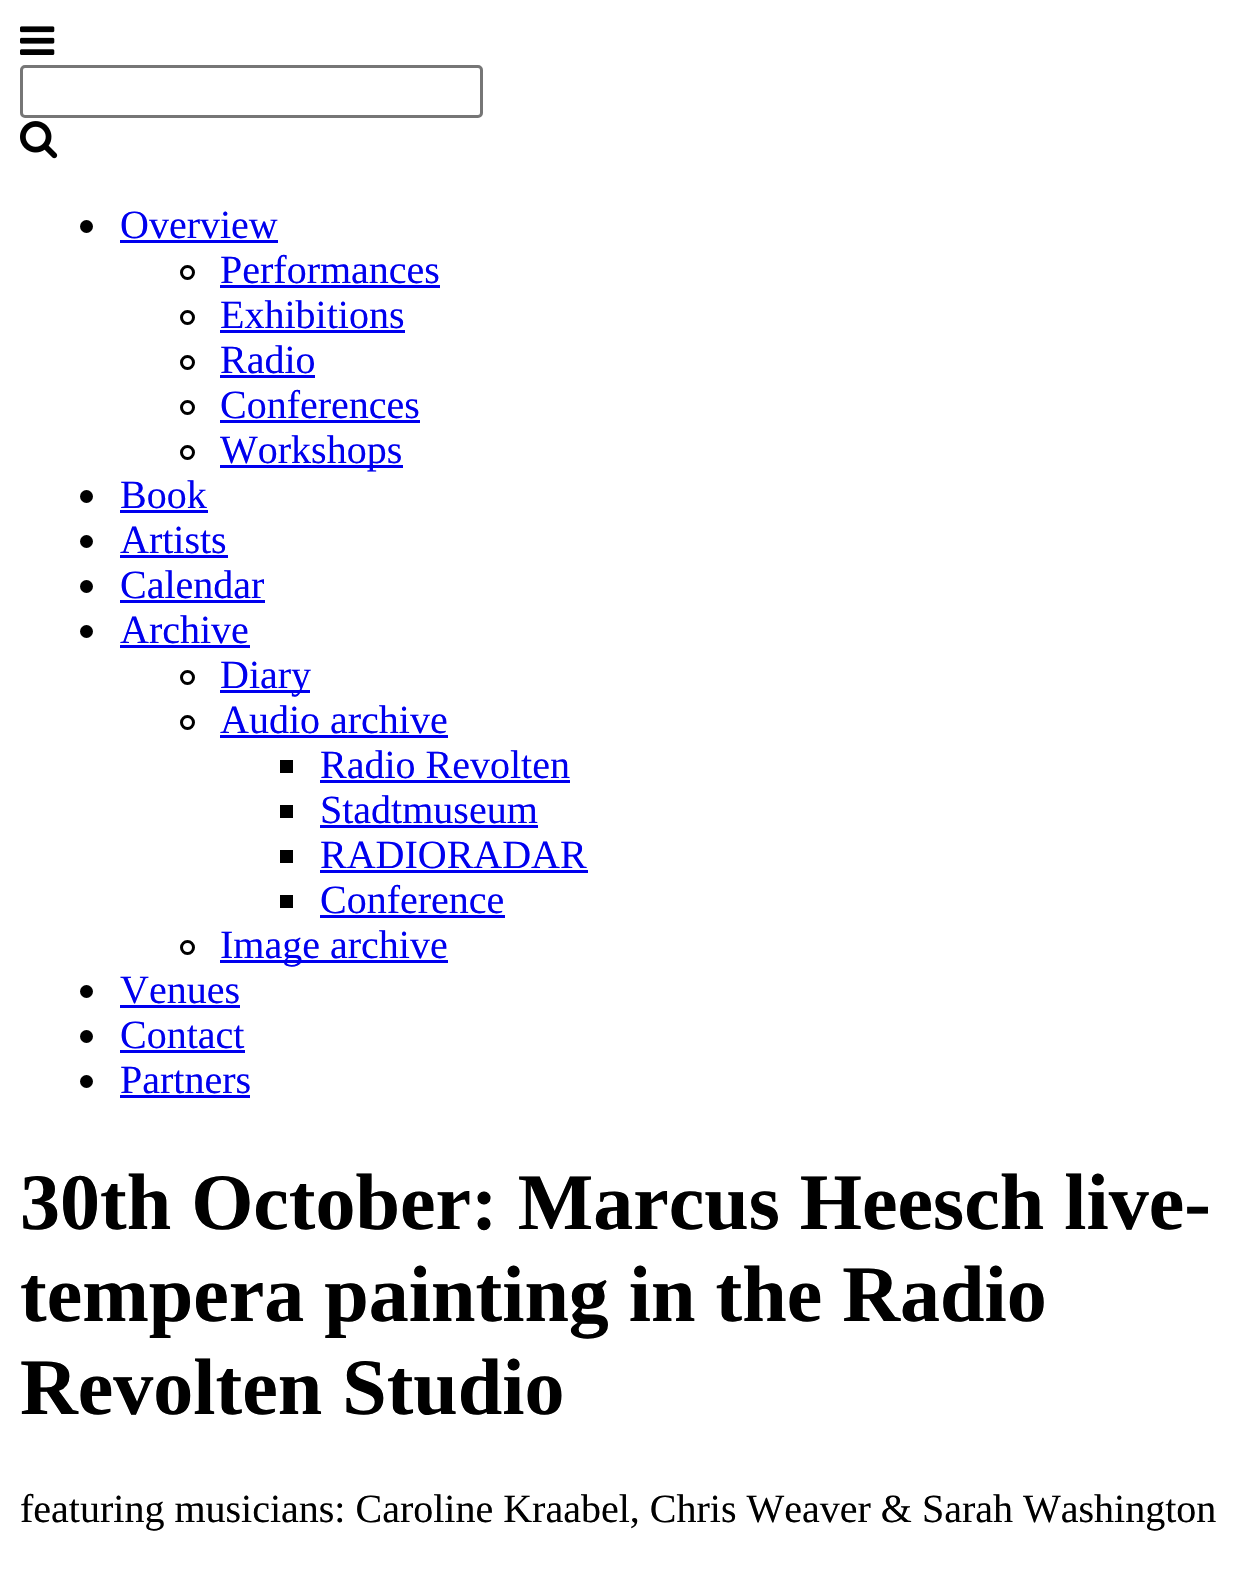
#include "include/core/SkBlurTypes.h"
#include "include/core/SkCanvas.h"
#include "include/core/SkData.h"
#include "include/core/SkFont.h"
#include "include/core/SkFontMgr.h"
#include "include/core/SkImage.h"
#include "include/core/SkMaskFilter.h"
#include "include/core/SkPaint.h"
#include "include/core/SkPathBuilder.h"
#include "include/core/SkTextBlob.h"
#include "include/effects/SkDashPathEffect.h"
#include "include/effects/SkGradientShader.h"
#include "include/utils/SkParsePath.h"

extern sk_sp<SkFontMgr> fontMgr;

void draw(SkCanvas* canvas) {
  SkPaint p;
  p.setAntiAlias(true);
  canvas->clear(SK_ColorWHITE);
  canvas->drawImageRect(SkImages::DeferredFromEncodedData(SkData::MakeFromFileName("images/1.png")), SkRect::MakeLTRB(20, 26, 55, 55), SkSamplingOptions());
  p.setStyle(SkPaint::kStroke_Style);
  p.setStrokeWidth(3);
  p.setColor(SkColorSetRGB(118, 118, 118));
  canvas->drawRoundRect(SkRect::MakeLTRB(21.5f, 66.5f, 481.5f, 116.5f), 3.5f, 3.5f, p);
  canvas->drawImageRect(SkImages::DeferredFromEncodedData(SkData::MakeFromFileName("images/2.png")), SkRect::MakeLTRB(20, 121, 58, 159), SkSamplingOptions());
  p.setStyle(SkPaint::kFill_Style);
  p.setColor(SK_ColorBLACK);
  canvas->drawCircle(86.5f, 226.5f, 6.5f, p);
  p.setColor(SkColorSetRGB(0, 0, 238));
  canvas->drawRect(SkRect::MakeLTRB(120, 240, 278, 243), p);
  p.setStyle(SkPaint::kStroke_Style);
  p.setColor(SK_ColorBLACK);
  canvas->drawCircle(187.5f, 272.5f, 6, p);
  p.setStyle(SkPaint::kFill_Style);
  p.setColor(SkColorSetRGB(0, 0, 238));
  canvas->drawRect(SkRect::MakeLTRB(220, 285, 440, 288), p);
  p.setStyle(SkPaint::kStroke_Style);
  p.setColor(SK_ColorBLACK);
  canvas->drawCircle(187.5f, 317.5f, 6, p);
  p.setStyle(SkPaint::kFill_Style);
  p.setColor(SkColorSetRGB(0, 0, 238));
  canvas->drawRect(SkRect::MakeLTRB(220, 330, 405, 333), p);
  p.setStyle(SkPaint::kStroke_Style);
  p.setColor(SK_ColorBLACK);
  canvas->drawCircle(187.5f, 362.5f, 6, p);
  p.setStyle(SkPaint::kFill_Style);
  p.setColor(SkColorSetRGB(0, 0, 238));
  canvas->drawRect(SkRect::MakeLTRB(220, 375, 315, 378), p);
  p.setStyle(SkPaint::kStroke_Style);
  p.setColor(SK_ColorBLACK);
  canvas->drawCircle(187.5f, 407.5f, 6, p);
  p.setStyle(SkPaint::kFill_Style);
  p.setColor(SkColorSetRGB(0, 0, 238));
  canvas->drawRect(SkRect::MakeLTRB(220, 420, 420, 423), p);
  p.setStyle(SkPaint::kStroke_Style);
  p.setColor(SK_ColorBLACK);
  canvas->drawCircle(187.5f, 452.5f, 6, p);
  p.setStyle(SkPaint::kFill_Style);
  p.setColor(SkColorSetRGB(0, 0, 238));
  canvas->drawRect(SkRect::MakeLTRB(220, 465, 403, 468), p);
  p.setColor(SK_ColorBLACK);
  canvas->drawCircle(86.5f, 496.5f, 6.5f, p);
  p.setColor(SkColorSetRGB(0, 0, 238));
  canvas->drawRect(SkRect::MakeLTRB(120, 510, 208, 513), p);
  p.setColor(SK_ColorBLACK);
  canvas->drawCircle(86.5f, 541.5f, 6.5f, p);
  p.setColor(SkColorSetRGB(0, 0, 238));
  canvas->drawRect(SkRect::MakeLTRB(120, 555, 228, 558), p);
  p.setColor(SK_ColorBLACK);
  canvas->drawCircle(86.5f, 586.5f, 6.5f, p);
  p.setColor(SkColorSetRGB(0, 0, 238));
  canvas->drawRect(SkRect::MakeLTRB(120, 600, 265, 603), p);
  p.setColor(SK_ColorBLACK);
  canvas->drawCircle(86.5f, 631.5f, 6.5f, p);
  p.setColor(SkColorSetRGB(0, 0, 238));
  canvas->drawRect(SkRect::MakeLTRB(120, 645, 250, 648), p);
  p.setStyle(SkPaint::kStroke_Style);
  p.setColor(SK_ColorBLACK);
  canvas->drawCircle(187.5f, 677.5f, 6, p);
  p.setStyle(SkPaint::kFill_Style);
  p.setColor(SkColorSetRGB(0, 0, 238));
  canvas->drawRect(SkRect::MakeLTRB(220, 690, 310, 693), p);
  p.setStyle(SkPaint::kStroke_Style);
  p.setColor(SK_ColorBLACK);
  canvas->drawCircle(187.5f, 722.5f, 6, p);
  p.setStyle(SkPaint::kFill_Style);
  p.setColor(SkColorSetRGB(0, 0, 238));
  canvas->drawRect(SkRect::MakeLTRB(220, 735, 448, 738), p);
  p.setColor(SK_ColorBLACK);
  canvas->drawRect(SkRect::MakeLTRB(280, 760, 293, 773), p);
  p.setColor(SkColorSetRGB(0, 0, 238));
  canvas->drawRect(SkRect::MakeLTRB(320, 780, 570, 783), p);
  p.setColor(SK_ColorBLACK);
  canvas->drawRect(SkRect::MakeLTRB(280, 805, 293, 818), p);
  p.setColor(SkColorSetRGB(0, 0, 238));
  canvas->drawRect(SkRect::MakeLTRB(320, 825, 538, 828), p);
  p.setColor(SK_ColorBLACK);
  canvas->drawRect(SkRect::MakeLTRB(280, 850, 293, 863), p);
  p.setColor(SkColorSetRGB(0, 0, 238));
  canvas->drawRect(SkRect::MakeLTRB(320, 870, 588, 873), p);
  p.setColor(SK_ColorBLACK);
  canvas->drawRect(SkRect::MakeLTRB(280, 895, 293, 908), p);
  p.setColor(SkColorSetRGB(0, 0, 238));
  canvas->drawRect(SkRect::MakeLTRB(320, 915, 505, 918), p);
  p.setStyle(SkPaint::kStroke_Style);
  p.setColor(SK_ColorBLACK);
  canvas->drawCircle(187.5f, 947.5f, 6, p);
  p.setStyle(SkPaint::kFill_Style);
  p.setColor(SkColorSetRGB(0, 0, 238));
  canvas->drawRect(SkRect::MakeLTRB(220, 960, 448, 963), p);
  p.setColor(SK_ColorBLACK);
  canvas->drawCircle(86.5f, 991.5f, 6.5f, p);
  p.setColor(SkColorSetRGB(0, 0, 238));
  canvas->drawRect(SkRect::MakeLTRB(120, 1005, 240, 1008), p);
  p.setColor(SK_ColorBLACK);
  canvas->drawCircle(86.5f, 1036.5f, 6.5f, p);
  p.setColor(SkColorSetRGB(0, 0, 238));
  canvas->drawRect(SkRect::MakeLTRB(120, 1050, 245, 1053), p);
  p.setColor(SK_ColorBLACK);
  canvas->drawCircle(86.5f, 1081.5f, 6.5f, p);
  p.setColor(SkColorSetRGB(0, 0, 238));
  canvas->drawRect(SkRect::MakeLTRB(120, 1095, 250, 1098), p);
  SkFont font1(fontMgr->matchFamilyStyle("Liberation Serif", SkFontStyle::Normal()), 40);
  font1.setSubpixel(true);
  canvas->drawString("Overview", 120, 238, font1, p);
  canvas->drawString("Performances", 220, 283, font1, p);
  canvas->drawString("Exhibitions", 220, 328, font1, p);
  canvas->drawString("Radio", 220, 373, font1, p);
  canvas->drawString("Conferences", 220, 418, font1, p);
  canvas->drawString("Workshops", 220, 463, font1, p);
  canvas->drawString("Book", 120, 508, font1, p);
  canvas->drawString("Artists", 120, 553, font1, p);
  canvas->drawString("Calendar", 120, 598, font1, p);
  canvas->drawString("Archive", 120, 643, font1, p);
  canvas->drawString("Diary", 220, 688, font1, p);
  canvas->drawString("Audio archive", 220, 733, font1, p);
  canvas->drawString("Radio Revolten", 320, 778, font1, p);
  canvas->drawString("Stadtmuseum", 320, 823, font1, p);
  canvas->drawString("RADIORADAR", 320, 868, font1, p);
  canvas->drawString("Conference", 320, 913, font1, p);
  canvas->drawString("Image archive", 220, 958, font1, p);
  canvas->drawString("Venues", 120, 1003, font1, p);
  canvas->drawString("Contact", 120, 1048, font1, p);
  canvas->drawString("Partners", 120, 1093, font1, p);
  SkFont font2(fontMgr->matchFamilyStyle("Liberation Serif", SkFontStyle::Bold()), 80);
  font2.setSubpixel(true);
  p.setColor(SK_ColorBLACK);
  canvas->drawString("30th October: Marcus Heesch live-", 20, 1229, font2, p);
  canvas->drawString("tempera painting in the Radio", 20, 1321, font2, p);
  canvas->drawString("Revolten Studio", 20, 1414, font2, p);
  canvas->drawString("featuring musicians: Caroline Kraabel, Chris Weaver & Sarah Washington", 20, 1522, font1, p);
}
